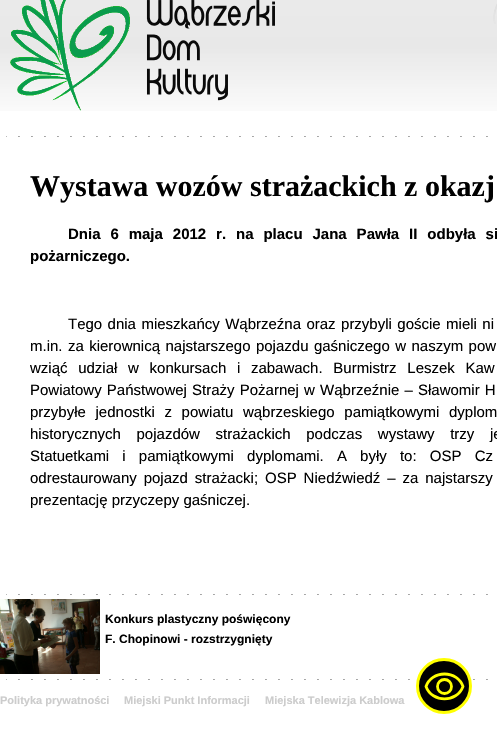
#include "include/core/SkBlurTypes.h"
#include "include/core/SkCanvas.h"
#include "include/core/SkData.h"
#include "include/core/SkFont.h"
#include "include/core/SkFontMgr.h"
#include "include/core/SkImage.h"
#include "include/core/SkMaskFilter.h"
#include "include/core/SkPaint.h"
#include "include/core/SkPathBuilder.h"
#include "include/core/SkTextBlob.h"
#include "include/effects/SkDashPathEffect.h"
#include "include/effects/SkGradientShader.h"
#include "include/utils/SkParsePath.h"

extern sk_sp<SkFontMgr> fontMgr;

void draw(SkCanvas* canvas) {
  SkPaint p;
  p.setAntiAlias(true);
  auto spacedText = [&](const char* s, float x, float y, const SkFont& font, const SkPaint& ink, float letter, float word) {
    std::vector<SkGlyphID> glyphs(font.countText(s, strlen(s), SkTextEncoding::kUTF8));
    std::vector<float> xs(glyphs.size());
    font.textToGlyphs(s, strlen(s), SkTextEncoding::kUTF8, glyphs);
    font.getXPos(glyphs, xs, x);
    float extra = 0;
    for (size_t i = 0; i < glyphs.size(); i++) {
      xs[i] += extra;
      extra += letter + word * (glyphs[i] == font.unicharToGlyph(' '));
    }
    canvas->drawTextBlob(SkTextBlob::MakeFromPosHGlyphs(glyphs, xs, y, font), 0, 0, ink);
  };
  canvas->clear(SK_ColorWHITE);
  canvas->drawImageRect(SkImages::DeferredFromEncodedData(SkData::MakeFromFileName("images/1.png")), SkRect::MakeLTRB(0, 0, 497, 111), SkSamplingOptions());
  canvas->drawImageRect(SkImages::DeferredFromEncodedData(SkData::MakeFromFileName("images/2.png")), SkRect::MakeLTRB(10, 0, 275, 111), SkSamplingOptions());
  canvas->drawImageRect(SkImages::DeferredFromEncodedData(SkData::MakeFromFileName("images/3.png")), SkRect::MakeLTRB(6, 136, 488, 137), SkSamplingOptions());
  canvas->drawImageRect(SkImages::DeferredFromEncodedData(SkData::MakeFromFileName("images/3.png")), SkRect::MakeLTRB(6, 594, 488, 595), SkSamplingOptions());
  canvas->drawImageRect(SkImages::DeferredFromEncodedData(SkData::MakeFromFileName("images/4.png")), SkRect::MakeLTRB(0, 599, 100, 674), SkSamplingOptions());
  canvas->drawImageRect(SkImages::DeferredFromEncodedData(SkData::MakeFromFileName("images/3.png")), SkRect::MakeLTRB(6, 679, 488, 680), SkSamplingOptions());
  p.setColor(SK_ColorBLACK);
  canvas->drawCircle(444, 686, 26.5f, p);
  p.setStyle(SkPaint::kStroke_Style);
  p.setStrokeWidth(3);
  p.setColor(SkColorSetRGB(255, 255, 0));
  canvas->drawCircle(444, 686, 26.5f, p);
  p.setStrokeWidth(2.8f);
  p.setStrokeCap(SkPaint::kRound_Cap);
  p.setStrokeJoin(SkPaint::kRound_Join);
  canvas->drawPath(SkPathBuilder().moveTo(444.5f, 674).cubicTo(436, 674, 428.5f, 679, 426, 686.5f).cubicTo(432, 703, 457, 703, 463, 686.5f).cubicTo(460.5f, 679, 453, 674, 444.5f, 674).close().detach(), p);
  p.setStrokeCap(SkPaint::kButt_Cap);
  p.setStrokeJoin(SkPaint::kMiter_Join);
  canvas->drawCircle(444.5f, 686.5f, 7, p);
  SkFont font1(fontMgr->matchFamilyStyle("Liberation Serif", SkFontStyle::Bold()), 30);
  font1.setSubpixel(true);
  p.setStyle(SkPaint::kFill_Style);
  p.setColor(SK_ColorBLACK);
  canvas->drawString("Wystawa wozów strażackich z okazj", 30, 196, font1, p);
  SkFont font2(fontMgr->matchFamilyStyle("Liberation Sans", SkFontStyle::Bold()), 15);
  font2.setSubpixel(true);
  spacedText("Dnia 6 maja 2012 r. na placu Jana Pawła II odbyła si", 68, 239, font2, p, 0, 5.75f);
  canvas->drawString("pożarniczego.", 30, 261, font2, p);
  SkFont font3(fontMgr->matchFamilyStyle("Liberation Sans", SkFontStyle::Normal()), 15);
  font3.setSubpixel(true);
  spacedText("Tego dnia mieszkańcy Wąbrzeźna oraz przybyli goście mieli ni", 68, 329, font3, p, 0, 1.25f);
  spacedText("m.in. za kierownicą najstarszego pojazdu gaśniczego w naszym powi", 30, 351, font3, p, 0, 1.25f);
  spacedText("wziąć udział w konkursach i zabawach. Burmistrz Leszek Kaw", 30, 373, font3, p, 0, 6.5f);
  spacedText("Powiatowy Państwowej Straży Pożarnej w Wąbrzeźnie – Sławomir H", 30, 395, font3, p, 0, 1);
  spacedText("przybyłe jednostki z powiatu wąbrzeskiego pamiątkowymi dyplom", 30, 417, font3, p, 0, 5.5f);
  spacedText("historycznych pojazdów strażackich podczas wystawy trzy je", 30, 439, font3, p, 0, 11.5f);
  spacedText("Statuetkami i pamiątkowymi dyplomami. A były to: OSP Cz", 30, 461, font3, p, 0, 9);
  spacedText("odrestaurowany pojazd strażacki; OSP Niedźwiedź – za najstarszy", 30, 483, font3, p, 0, 2.75f);
  canvas->drawString("prezentację przyczepy gaśniczej.", 30, 505, font3, p);
  SkFont font4(fontMgr->matchFamilyStyle("Liberation Sans", SkFontStyle::Bold()), 12);
  font4.setSubpixel(true);
  canvas->drawString("Konkurs plastyczny poświęcony", 105, 623, font4, p);
  canvas->drawString("F. Chopinowi - rozstrzygnięty", 105, 643, font4, p);
  SkFont font5(fontMgr->matchFamilyStyle("Liberation Sans", SkFontStyle::Bold()), 11);
  font5.setSubpixel(true);
  p.setColor(SkColorSetRGB(204, 204, 204));
  canvas->drawString("Polityka prywatności", 0, 704, font5, p);
  canvas->drawString("Miejski Punkt Informacji", 124, 704, font5, p);
  canvas->drawString("Miejska Telewizja Kablowa", 265, 704, font5, p);
}
